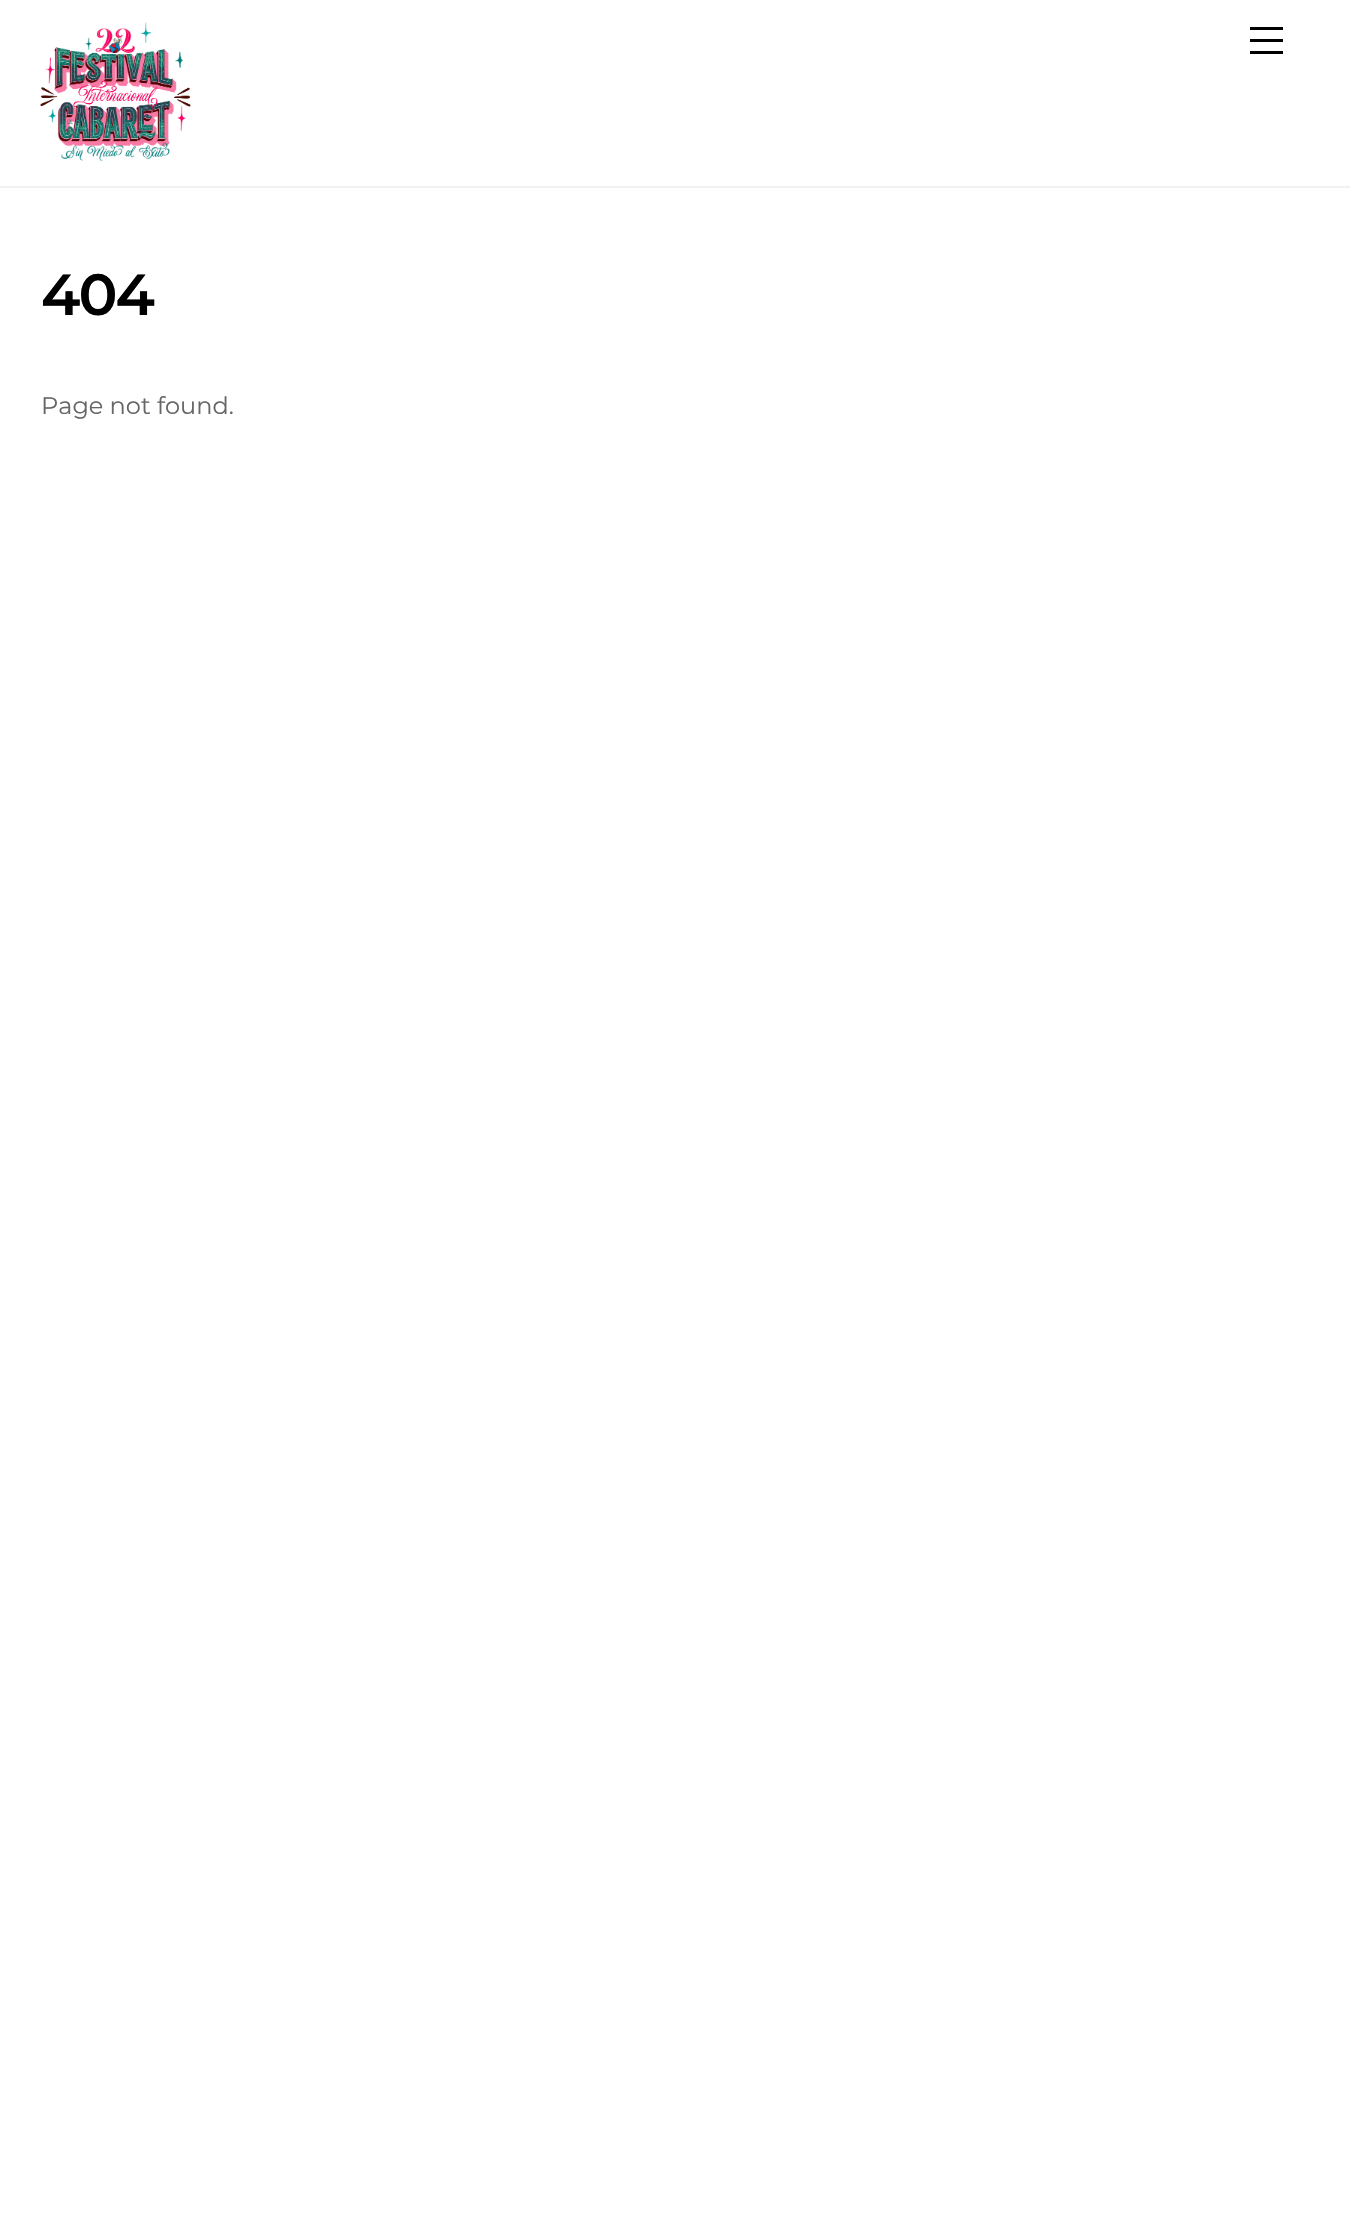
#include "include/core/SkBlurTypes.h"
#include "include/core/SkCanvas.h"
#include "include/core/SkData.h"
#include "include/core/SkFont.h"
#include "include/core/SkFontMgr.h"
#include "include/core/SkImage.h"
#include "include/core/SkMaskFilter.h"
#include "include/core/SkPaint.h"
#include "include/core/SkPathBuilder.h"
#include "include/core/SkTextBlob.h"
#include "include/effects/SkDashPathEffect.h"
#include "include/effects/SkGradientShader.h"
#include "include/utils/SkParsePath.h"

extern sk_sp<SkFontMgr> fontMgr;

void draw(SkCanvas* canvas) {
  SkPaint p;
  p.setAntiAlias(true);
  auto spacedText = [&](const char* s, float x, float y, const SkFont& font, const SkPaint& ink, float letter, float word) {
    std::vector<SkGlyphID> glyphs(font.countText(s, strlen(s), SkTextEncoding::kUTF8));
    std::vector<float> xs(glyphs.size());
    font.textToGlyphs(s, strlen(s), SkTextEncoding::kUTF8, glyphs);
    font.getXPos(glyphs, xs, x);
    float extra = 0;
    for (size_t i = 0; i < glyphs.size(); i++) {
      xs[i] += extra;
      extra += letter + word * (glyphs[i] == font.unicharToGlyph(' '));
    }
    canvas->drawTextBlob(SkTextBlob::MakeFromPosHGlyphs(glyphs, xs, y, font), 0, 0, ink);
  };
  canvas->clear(SK_ColorWHITE);
  p.setColor(SkColorSetRGB(242, 242, 242));
  canvas->drawRect(SkRect::MakeLTRB(0, 186, 1350, 188), p);
  canvas->drawImageRect(SkImages::DeferredFromEncodedData(SkData::MakeFromFileName("images/1.png")), SkRect::MakeLTRB(40, 22, 191, 161), SkSamplingOptions());
  p.setColor(SK_ColorBLACK);
  canvas->drawRect(SkRect::MakeLTRB(1250, 51, 1283, 54), p);
  canvas->drawRect(SkRect::MakeLTRB(1250, 27, 1283, 30), p);
  canvas->drawRect(SkRect::MakeLTRB(1250, 39, 1283, 42), p);
  SkFont font1(fontMgr->matchFamilyStyle("Montserrat", SkFontStyle(600, SkFontStyle::kNormal_Width, SkFontStyle::kUpright_Slant)), 58);
  font1.setSubpixel(true);
  spacedText("404", 41, 315, font1, p, -2, 0);
  SkFont font2(fontMgr->matchFamilyStyle("Montserrat", SkFontStyle::Normal()), 24);
  font2.setSubpixel(true);
  p.setColor(SkColorSetRGB(102, 102, 102));
  canvas->drawString("Page not found.", 41, 414, font2, p);
}
